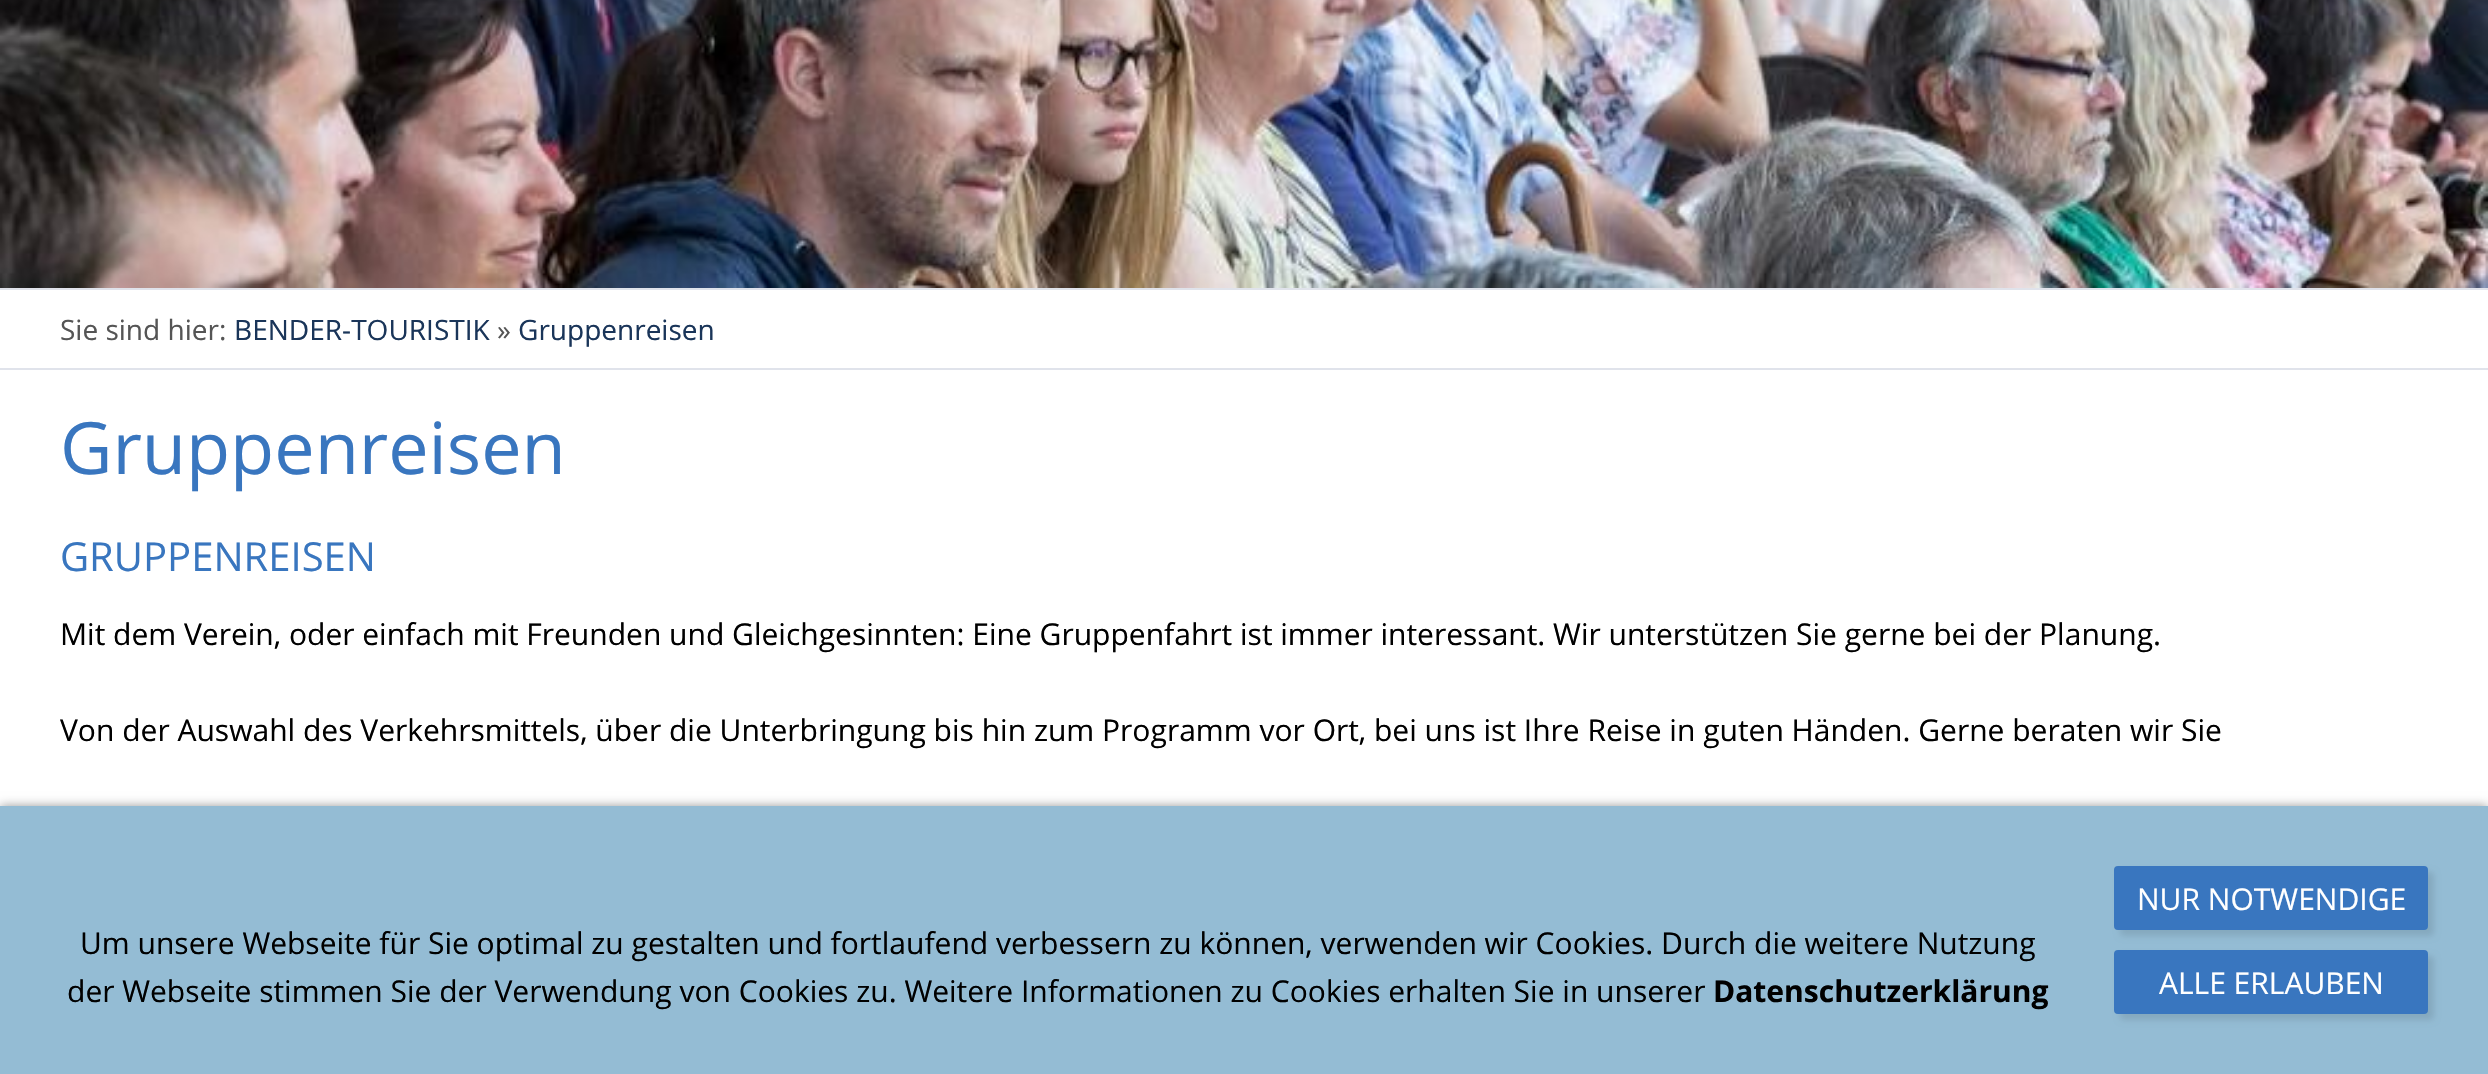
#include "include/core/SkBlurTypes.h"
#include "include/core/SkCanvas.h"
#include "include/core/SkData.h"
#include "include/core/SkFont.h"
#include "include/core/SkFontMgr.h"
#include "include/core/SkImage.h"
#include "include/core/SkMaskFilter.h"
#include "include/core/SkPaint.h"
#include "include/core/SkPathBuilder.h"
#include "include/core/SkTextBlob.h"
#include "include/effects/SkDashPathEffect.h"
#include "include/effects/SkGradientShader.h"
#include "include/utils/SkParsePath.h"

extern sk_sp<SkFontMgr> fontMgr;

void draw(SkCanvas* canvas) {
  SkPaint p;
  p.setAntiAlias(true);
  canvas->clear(SK_ColorWHITE);
  p.setColor(SkColorSetRGB(224, 227, 235));
  canvas->drawRect(SkRect::MakeLTRB(0, 288, 2488, 290), p);
  canvas->drawImageRect(SkImages::DeferredFromEncodedData(SkData::MakeFromFileName("images/1.png")), SkRect::MakeLTRB(0, 0, 2488, 288), SkSamplingOptions());
  canvas->drawRect(SkRect::MakeLTRB(0, 368, 2488, 370), p);
  p.setColor(SkColorSetARGB(102, 0, 0, 0));
  p.setMaskFilter(SkMaskFilter::MakeBlur(kNormal_SkBlurStyle, 5));
  canvas->drawRect(SkRect::MakeLTRB(0, 806, 2488, 1074), p);
  p.setMaskFilter(nullptr);
  p.setColor(SkColorSetRGB(148, 188, 212));
  canvas->drawRect(SkRect::MakeLTRB(0, 806, 2488, 1074), p);
  p.setColor(SkColorSetARGB(26, 0, 0, 0));
  p.setMaskFilter(SkMaskFilter::MakeBlur(kNormal_SkBlurStyle, 3));
  canvas->drawRoundRect(SkRect::MakeLTRB(2120, 872, 2434, 936), 4, 4, p);
  p.setMaskFilter(nullptr);
  p.setColor(SkColorSetRGB(57, 118, 191));
  canvas->drawRoundRect(SkRect::MakeLTRB(2115, 867, 2427, 929), 3, 3, p);
  p.setStyle(SkPaint::kStroke_Style);
  p.setStrokeWidth(2);
  canvas->drawRoundRect(SkRect::MakeLTRB(2115, 867, 2427, 929), 3, 3, p);
  p.setStyle(SkPaint::kFill_Style);
  p.setColor(SkColorSetARGB(26, 0, 0, 0));
  p.setMaskFilter(SkMaskFilter::MakeBlur(kNormal_SkBlurStyle, 3));
  canvas->drawRoundRect(SkRect::MakeLTRB(2120, 956, 2434, 1020), 4, 4, p);
  p.setMaskFilter(nullptr);
  p.setColor(SkColorSetRGB(57, 118, 191));
  canvas->drawRoundRect(SkRect::MakeLTRB(2115, 951, 2427, 1013), 3, 3, p);
  p.setStyle(SkPaint::kStroke_Style);
  canvas->drawRoundRect(SkRect::MakeLTRB(2115, 951, 2427, 1013), 3, 3, p);
  SkFont font1(fontMgr->matchFamilyStyle("Open Sans", SkFontStyle::Normal()), 28);
  font1.setSubpixel(true);
  p.setStyle(SkPaint::kFill_Style);
  p.setColor(SkColorSetRGB(85, 85, 85));
  canvas->drawString("Sie sind hier:", 60, 340, font1, p);
  p.setColor(SkColorSetRGB(26, 53, 89));
  canvas->drawString("BENDER-TOURISTIK", 234, 340, font1, p);
  p.setColor(SkColorSetRGB(85, 85, 85));
  canvas->drawString("»", 497, 340, font1, p);
  p.setColor(SkColorSetRGB(26, 53, 89));
  canvas->drawString("Gruppenreisen", 518, 340, font1, p);
  SkFont font2(fontMgr->matchFamilyStyle("Open Sans", SkFontStyle::Normal()), 72);
  font2.setSubpixel(true);
  p.setColor(SkColorSetRGB(57, 118, 191));
  canvas->drawString("Gruppenreisen", 60, 474, font2, p);
  SkFont font3(fontMgr->matchFamilyStyle("Open Sans", SkFontStyle::Normal()), 40);
  font3.setSubpixel(true);
  canvas->drawString("GRUPPENREISEN", 60, 571, font3, p);
  SkFont font4(fontMgr->matchFamilyStyle("Open Sans", SkFontStyle::Normal()), 30);
  font4.setSubpixel(true);
  p.setColor(SK_ColorBLACK);
  canvas->drawString("Mit dem Verein, oder einfach mit Freunden und Gleichgesinnten: Eine Gruppenfahrt ist immer interessant. Wir unterstützen Sie gerne bei der Planung.", 60, 645, font4, p);
  canvas->drawString("Von der Auswahl des Verkehrsmittels, über die Unterbringung bis hin zum Programm vor Ort, bei uns ist Ihre Reise in guten Händen. Gerne beraten wir Sie", 60, 741, font4, p);
  canvas->drawString("Um unsere Webseite für Sie optimal zu gestalten und fortlaufend verbessern zu können, verwenden wir Cookies. Durch die weitere Nutzung", 80, 954, font4, p);
  canvas->drawString("der Webseite stimmen Sie der Verwendung von Cookies zu. Weitere Informationen zu Cookies erhalten Sie in unserer", 67, 1002, font4, p);
  SkFont font5(fontMgr->matchFamilyStyle("Open Sans", SkFontStyle::Bold()), 30);
  font5.setSubpixel(true);
  canvas->drawString("Datenschutzerklärung", 1713, 1002, font5, p);
  p.setColor(SK_ColorWHITE);
  canvas->drawString("NUR NOTWENDIGE", 2137, 910, font4, p);
  canvas->drawString("ALLE ERLAUBEN", 2159, 994, font4, p);
}
